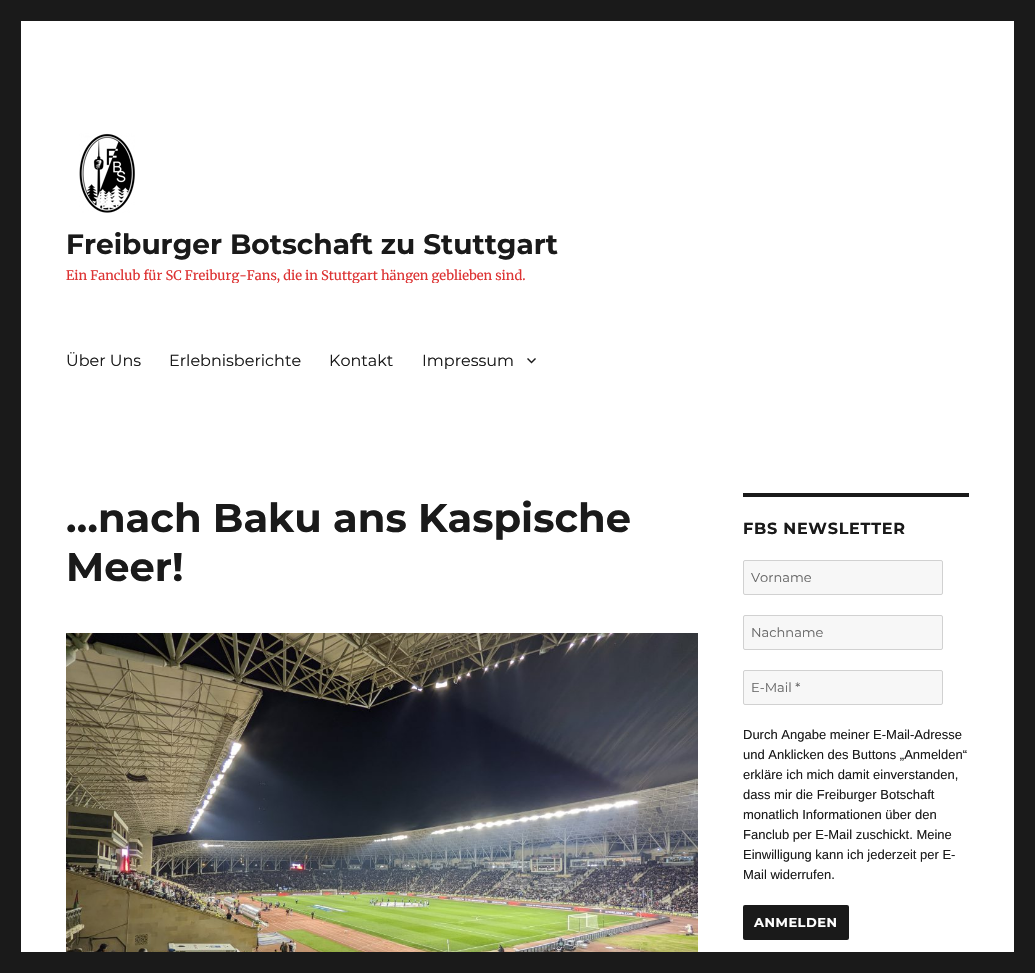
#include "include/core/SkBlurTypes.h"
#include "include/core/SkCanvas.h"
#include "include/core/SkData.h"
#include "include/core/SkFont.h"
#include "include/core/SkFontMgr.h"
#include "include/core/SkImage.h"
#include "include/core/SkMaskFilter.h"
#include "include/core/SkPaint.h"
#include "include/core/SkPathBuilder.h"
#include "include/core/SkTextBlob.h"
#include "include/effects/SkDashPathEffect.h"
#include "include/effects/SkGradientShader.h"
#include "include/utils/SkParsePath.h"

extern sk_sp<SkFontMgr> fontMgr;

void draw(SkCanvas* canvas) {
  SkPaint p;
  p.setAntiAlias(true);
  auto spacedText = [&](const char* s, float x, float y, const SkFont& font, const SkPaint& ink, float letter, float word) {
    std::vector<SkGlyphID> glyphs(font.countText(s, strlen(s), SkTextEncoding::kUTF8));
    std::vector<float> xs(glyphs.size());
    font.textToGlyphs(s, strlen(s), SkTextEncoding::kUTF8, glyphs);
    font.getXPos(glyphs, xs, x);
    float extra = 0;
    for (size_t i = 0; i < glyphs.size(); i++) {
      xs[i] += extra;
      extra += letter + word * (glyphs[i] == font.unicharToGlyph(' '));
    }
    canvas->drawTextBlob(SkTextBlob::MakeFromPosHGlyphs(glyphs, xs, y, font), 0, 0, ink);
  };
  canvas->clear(SkColorSetRGB(26, 26, 26));
  p.setColor(SK_ColorWHITE);
  canvas->drawRect(SkRect::MakeLTRB(21, 21, 1014, 952), p);
  canvas->drawImageRect(SkImages::DeferredFromEncodedData(SkData::MakeFromFileName("images/1.png")), SkRect::MakeLTRB(79, 133, 135, 213), SkSamplingOptions());
  canvas->drawImageRect(SkImages::DeferredFromEncodedData(SkData::MakeFromFileName("images/2.png")), SkRect::MakeLTRB(527, 358, 536, 364), SkSamplingOptions());
  canvas->drawImageRect(SkImages::DeferredFromEncodedData(SkData::MakeFromFileName("images/3.png")), SkRect::MakeLTRB(66, 633, 698, 952), SkSamplingOptions());
  p.setColor(SkColorSetRGB(26, 26, 26));
  canvas->drawRect(SkRect::MakeLTRB(743, 493, 969, 497), p);
  p.setColor(SkColorSetRGB(247, 247, 247));
  canvas->drawRoundRect(SkRect::MakeLTRB(743.5f, 560.5f, 942.5f, 594.5f), 1.5f, 1.5f, p);
  p.setStyle(SkPaint::kStroke_Style);
  p.setStrokeWidth(1);
  p.setColor(SkColorSetRGB(209, 209, 209));
  canvas->drawRoundRect(SkRect::MakeLTRB(743.5f, 560.5f, 942.5f, 594.5f), 1.5f, 1.5f, p);
  p.setStyle(SkPaint::kFill_Style);
  p.setColor(SkColorSetRGB(247, 247, 247));
  canvas->drawRoundRect(SkRect::MakeLTRB(743.5f, 615.5f, 942.5f, 649.5f), 1.5f, 1.5f, p);
  p.setStyle(SkPaint::kStroke_Style);
  p.setColor(SkColorSetRGB(209, 209, 209));
  canvas->drawRoundRect(SkRect::MakeLTRB(743.5f, 615.5f, 942.5f, 649.5f), 1.5f, 1.5f, p);
  p.setStyle(SkPaint::kFill_Style);
  p.setColor(SkColorSetRGB(247, 247, 247));
  canvas->drawRoundRect(SkRect::MakeLTRB(743.5f, 670.5f, 942.5f, 704.5f), 1.5f, 1.5f, p);
  p.setStyle(SkPaint::kStroke_Style);
  p.setColor(SkColorSetRGB(209, 209, 209));
  canvas->drawRoundRect(SkRect::MakeLTRB(743.5f, 670.5f, 942.5f, 704.5f), 1.5f, 1.5f, p);
  p.setStyle(SkPaint::kFill_Style);
  p.setColor(SkColorSetRGB(26, 26, 26));
  canvas->drawRoundRect(SkRect::MakeLTRB(743, 905, 849, 940), 2, 2, p);
  SkFont font1(fontMgr->matchFamilyStyle("Montserrat", SkFontStyle::Bold()), 28);
  font1.setSubpixel(true);
  canvas->drawString("Freiburger Botschaft zu Stuttgart", 66, 254, font1, p);
  canvas->save();
  canvas->clipRect(SkRect::MakeLTRB(66, 133, 558, 283));
  SkFont font2(fontMgr->matchFamilyStyle("Merriweather", SkFontStyle::Normal()), 13);
  font2.setSubpixel(true);
  p.setColor(SkColorSetRGB(221, 51, 51));
  canvas->drawString("Ein Fanclub für SC Freiburg-Fans, die in Stuttgart hängen geblieben sind.", 66, 280, font2, p);
  canvas->restore();
  SkFont font3(fontMgr->matchFamilyStyle("Montserrat", SkFontStyle::Normal()), 16);
  font3.setSubpixel(true);
  p.setColor(SkColorSetRGB(26, 26, 26));
  canvas->drawString("Über Uns", 66, 366, font3, p);
  canvas->drawString("Erlebnisberichte", 169, 366, font3, p);
  canvas->drawString("Kontakt", 329, 366, font3, p);
  canvas->drawString("Impressum", 422, 366, font3, p);
  SkFont font4(fontMgr->matchFamilyStyle("Montserrat", SkFontStyle::Bold()), 40);
  font4.setSubpixel(true);
  canvas->drawString("…nach Baku ans Kaspische", 66, 532, font4, p);
  canvas->drawString("Meer!", 66, 581, font4, p);
  SkFont font5(fontMgr->matchFamilyStyle("Montserrat", SkFontStyle::Bold()), 16);
  font5.setSubpixel(true);
  spacedText("FBS NEWSLETTER", 743, 534, font5, p, 0.75f, 0);
  SkFont font6(fontMgr->matchFamilyStyle("Montserrat", SkFontStyle::Normal()), 13);
  font6.setSubpixel(true);
  p.setColor(SkColorSetRGB(104, 104, 104));
  canvas->drawString("Vorname", 751, 582, font6, p);
  canvas->drawString("Nachname", 751, 637, font6, p);
  canvas->drawString("E-Mail *", 751, 692, font6, p);
  SkFont font7(fontMgr->matchFamilyStyle("Liberation Sans", SkFontStyle::Normal()), 13);
  font7.setSubpixel(true);
  p.setColor(SkColorSetRGB(26, 26, 26));
  canvas->drawString("Durch Angabe meiner E-Mail-Adresse", 743, 739, font7, p);
  canvas->drawString("und Anklicken des Buttons „Anmelden“", 743, 759, font7, p);
  canvas->drawString("erkläre ich mich damit einverstanden,", 743, 779, font7, p);
  canvas->drawString("dass mir die Freiburger Botschaft", 743, 799, font7, p);
  canvas->drawString("monatlich Informationen über den", 743, 819, font7, p);
  canvas->drawString("Fanclub per E-Mail zuschickt. Meine", 743, 839, font7, p);
  canvas->drawString("Einwilligung kann ich jederzeit per E-", 743, 859, font7, p);
  canvas->drawString("Mail widerrufen.", 743, 879, font7, p);
  SkFont font8(fontMgr->matchFamilyStyle("Montserrat", SkFontStyle::Bold()), 13);
  font8.setSubpixel(true);
  p.setColor(SK_ColorWHITE);
  spacedText("ANMELDEN", 754, 927, font8, p, 0.5f, 0);
}
